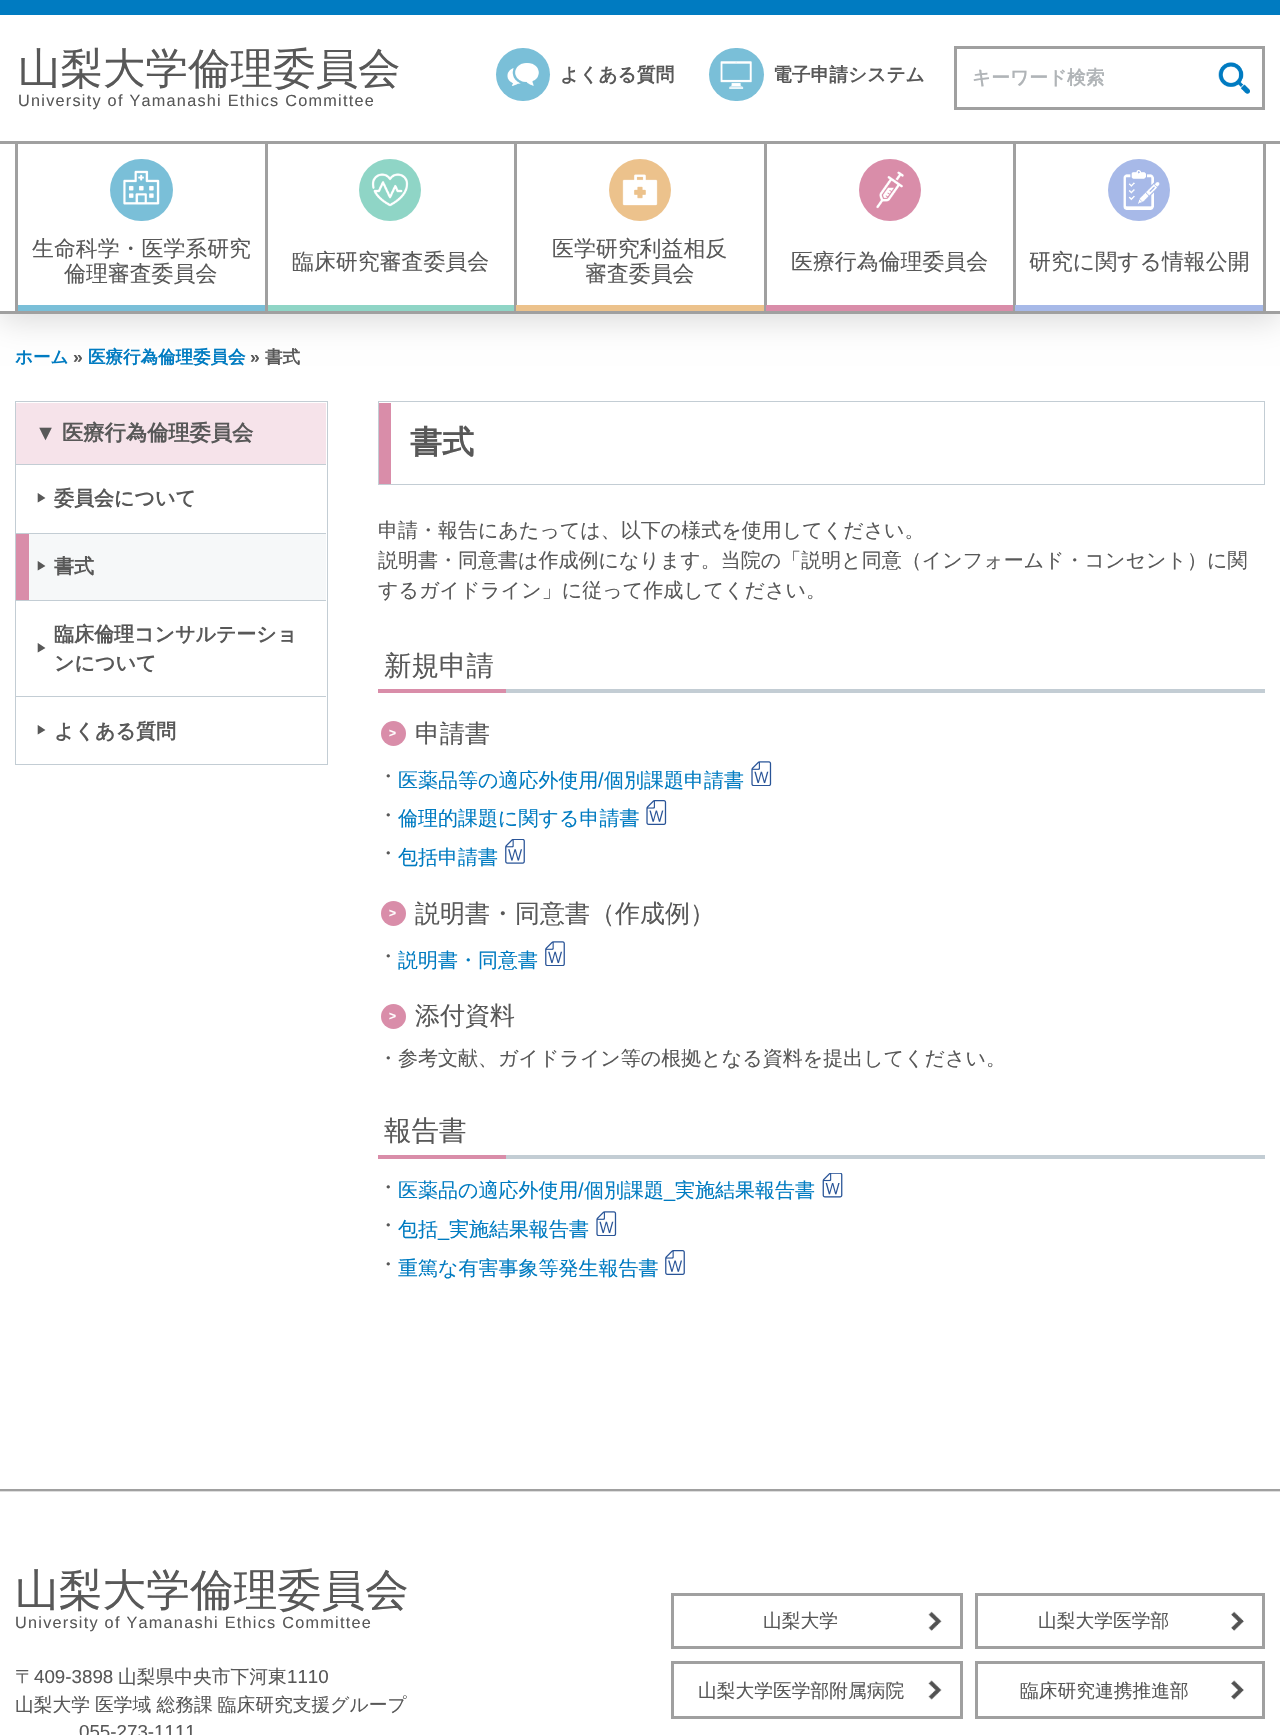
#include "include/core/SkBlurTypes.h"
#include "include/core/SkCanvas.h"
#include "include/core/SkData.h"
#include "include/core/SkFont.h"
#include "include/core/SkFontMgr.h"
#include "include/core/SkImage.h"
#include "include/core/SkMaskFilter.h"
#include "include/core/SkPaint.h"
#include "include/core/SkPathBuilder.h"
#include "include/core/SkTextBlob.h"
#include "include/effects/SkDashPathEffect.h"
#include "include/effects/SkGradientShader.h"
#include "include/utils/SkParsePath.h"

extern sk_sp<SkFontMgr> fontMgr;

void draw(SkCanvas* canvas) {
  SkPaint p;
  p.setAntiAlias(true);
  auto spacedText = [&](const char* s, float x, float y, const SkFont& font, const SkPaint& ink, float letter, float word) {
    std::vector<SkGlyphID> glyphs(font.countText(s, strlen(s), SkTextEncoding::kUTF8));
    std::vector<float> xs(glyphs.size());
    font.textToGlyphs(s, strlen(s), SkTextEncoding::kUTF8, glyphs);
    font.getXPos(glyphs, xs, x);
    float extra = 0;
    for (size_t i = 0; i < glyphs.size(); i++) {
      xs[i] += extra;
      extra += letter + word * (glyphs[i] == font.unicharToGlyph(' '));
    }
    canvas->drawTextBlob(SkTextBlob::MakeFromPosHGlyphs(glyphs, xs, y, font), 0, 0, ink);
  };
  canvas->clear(SK_ColorWHITE);
  p.setColor(SkColorSetARGB(38, 0, 0, 0));
  p.setMaskFilter(SkMaskFilter::MakeBlur(kNormal_SkBlurStyle, 15.5f));
  canvas->drawRect(SkRect::MakeLTRB(0, 6, 1280, 320), p);
  p.setMaskFilter(nullptr);
  p.setColor(SK_ColorWHITE);
  canvas->drawRect(SkRect::MakeLTRB(0, 15, 1280, 311), p);
  p.setColor(SkColorSetRGB(0, 123, 193));
  canvas->drawRect(SkRect::MakeLTRB(0, 0, 1280, 15), p);
  p.setColor(SkColorSetRGB(122, 191, 216));
  canvas->drawRoundRect(SkRect::MakeLTRB(496, 48, 550, 101), 26.5f, 26.5f, p);
  canvas->drawImageRect(SkImages::DeferredFromEncodedData(SkData::MakeFromFileName("images/1.png")), SkRect::MakeLTRB(507, 63, 539, 86), SkSamplingOptions());
  canvas->drawRoundRect(SkRect::MakeLTRB(709, 48, 764, 101), 26.5f, 26.5f, p);
  canvas->drawImageRect(SkImages::DeferredFromEncodedData(SkData::MakeFromFileName("images/2.png")), SkRect::MakeLTRB(720, 61, 752, 89), SkSamplingOptions());
  p.setStyle(SkPaint::kStroke_Style);
  p.setStrokeWidth(3);
  p.setColor(SkColorSetRGB(160, 160, 160));
  canvas->drawRect(SkRect::MakeLTRB(955.5f, 47.5f, 1263.5f, 108.5f), p);
  canvas->drawImageRect(SkImages::DeferredFromEncodedData(SkData::MakeFromFileName("images/3.png")), SkRect::MakeLTRB(1218, 62, 1250, 94), SkSamplingOptions());
  p.setStyle(SkPaint::kFill_Style);
  canvas->drawRect(SkRect::MakeLTRB(0, 141, 1280, 144), p);
  canvas->drawRect(SkRect::MakeLTRB(0, 311, 1280, 314), p);
  canvas->drawRect(SkRect::MakeLTRB(265, 144, 268, 311), p);
  canvas->drawRect(SkRect::MakeLTRB(15, 144, 18, 311), p);
  p.setColor(SkColorSetRGB(122, 191, 216));
  canvas->drawRect(SkRect::MakeLTRB(18, 305, 265, 311), p);
  canvas->drawRoundRect(SkRect::MakeLTRB(110, 159, 173, 221), 31, 31, p);
  canvas->drawImageRect(SkImages::DeferredFromEncodedData(SkData::MakeFromFileName("images/4.png")), SkRect::MakeLTRB(123, 170, 160, 205), SkSamplingOptions());
  p.setColor(SkColorSetRGB(160, 160, 160));
  canvas->drawRect(SkRect::MakeLTRB(514, 144, 517, 311), p);
  p.setColor(SkColorSetRGB(143, 213, 198));
  canvas->drawRect(SkRect::MakeLTRB(268, 305, 514, 311), p);
  canvas->drawCircle(390, 190, 31, p);
  canvas->drawImageRect(SkImages::DeferredFromEncodedData(SkData::MakeFromFileName("images/5.png")), SkRect::MakeLTRB(371, 173, 409, 207), SkSamplingOptions());
  p.setColor(SkColorSetRGB(160, 160, 160));
  canvas->drawRect(SkRect::MakeLTRB(764, 144, 767, 311), p);
  p.setColor(SkColorSetRGB(236, 194, 140));
  canvas->drawRect(SkRect::MakeLTRB(516, 305, 764, 311), p);
  canvas->drawCircle(640, 190, 31, p);
  canvas->drawImageRect(SkImages::DeferredFromEncodedData(SkData::MakeFromFileName("images/6.png")), SkRect::MakeLTRB(622, 174, 658, 206), SkSamplingOptions());
  p.setColor(SkColorSetRGB(160, 160, 160));
  canvas->drawRect(SkRect::MakeLTRB(1013, 144, 1016, 311), p);
  p.setColor(SkColorSetRGB(217, 141, 169));
  canvas->drawRect(SkRect::MakeLTRB(766, 305, 1013, 311), p);
  canvas->drawCircle(890, 190, 31, p);
  canvas->drawImageRect(SkImages::DeferredFromEncodedData(SkData::MakeFromFileName("images/7.png")), SkRect::MakeLTRB(876, 171, 904, 209), SkSamplingOptions());
  p.setColor(SkColorSetRGB(160, 160, 160));
  canvas->drawRect(SkRect::MakeLTRB(1263, 144, 1266, 311), p);
  p.setColor(SkColorSetRGB(167, 185, 232));
  canvas->drawRect(SkRect::MakeLTRB(1015, 305, 1263, 311), p);
  canvas->drawCircle(1139, 190, 31, p);
  canvas->drawImageRect(SkImages::DeferredFromEncodedData(SkData::MakeFromFileName("images/8.png")), SkRect::MakeLTRB(1123, 170, 1160, 210), SkSamplingOptions());
  p.setStyle(SkPaint::kStroke_Style);
  p.setStrokeWidth(1);
  p.setColor(SkColorSetRGB(195, 205, 212));
  canvas->drawRect(SkRect::MakeLTRB(15.5f, 401.5f, 327.5f, 764.5f), p);
  p.setStyle(SkPaint::kFill_Style);
  p.setColor(SkColorSetRGB(246, 227, 234));
  canvas->drawRect(SkRect::MakeLTRB(16, 403, 326, 464), p);
  p.setColor(SkColorSetRGB(195, 205, 212));
  canvas->drawRect(SkRect::MakeLTRB(16, 464, 326, 465), p);
  p.setColor(SkColorSetRGB(246, 248, 249));
  canvas->drawRect(SkRect::MakeLTRB(29, 534, 326, 600), p);
  p.setColor(SkColorSetRGB(217, 141, 169));
  canvas->drawRect(SkRect::MakeLTRB(16, 534, 29, 600), p);
  p.setColor(SkColorSetRGB(195, 205, 212));
  canvas->drawRect(SkRect::MakeLTRB(16, 533, 326, 534), p);
  canvas->drawRect(SkRect::MakeLTRB(16, 600, 326, 601), p);
  canvas->drawRect(SkRect::MakeLTRB(16, 696, 326, 697), p);
  p.setColor(SkColorSetRGB(217, 141, 169));
  canvas->drawRect(SkRect::MakeLTRB(379, 403, 391, 484), p);
  p.setStyle(SkPaint::kStroke_Style);
  p.setColor(SkColorSetRGB(195, 205, 212));
  canvas->drawRect(SkRect::MakeLTRB(378.5f, 401.5f, 1264.5f, 484.5f), p);
  p.setStyle(SkPaint::kFill_Style);
  canvas->drawRect(SkRect::MakeLTRB(506, 689, 1265, 693), p);
  p.setColor(SkColorSetRGB(217, 141, 169));
  canvas->drawRect(SkRect::MakeLTRB(378, 689, 506, 693), p);
  canvas->drawCircle(393.5f, 733.5f, 12.5f, p);
  canvas->drawImageRect(SkImages::DeferredFromEncodedData(SkData::MakeFromFileName("images/9.png")), SkRect::MakeLTRB(751, 761, 772, 786), SkSamplingOptions());
  canvas->drawImageRect(SkImages::DeferredFromEncodedData(SkData::MakeFromFileName("images/10.png")), SkRect::MakeLTRB(646, 800, 667, 825), SkSamplingOptions());
  canvas->drawImageRect(SkImages::DeferredFromEncodedData(SkData::MakeFromFileName("images/11.png")), SkRect::MakeLTRB(505, 839, 525, 864), SkSamplingOptions());
  canvas->drawCircle(393.5f, 913.5f, 12.5f, p);
  canvas->drawImageRect(SkImages::DeferredFromEncodedData(SkData::MakeFromFileName("images/12.png")), SkRect::MakeLTRB(545, 941, 565, 966), SkSamplingOptions());
  canvas->drawCircle(393.5f, 1016.5f, 12.5f, p);
  p.setColor(SkColorSetRGB(195, 205, 212));
  canvas->drawRect(SkRect::MakeLTRB(506, 1155, 1265, 1159), p);
  p.setColor(SkColorSetRGB(217, 141, 169));
  canvas->drawRect(SkRect::MakeLTRB(378, 1155, 506, 1159), p);
  canvas->drawImageRect(SkImages::DeferredFromEncodedData(SkData::MakeFromFileName("images/13.png")), SkRect::MakeLTRB(822, 1173, 843, 1198), SkSamplingOptions());
  canvas->drawImageRect(SkImages::DeferredFromEncodedData(SkData::MakeFromFileName("images/9.png")), SkRect::MakeLTRB(596, 1211, 617, 1236), SkSamplingOptions());
  canvas->drawImageRect(SkImages::DeferredFromEncodedData(SkData::MakeFromFileName("images/14.png")), SkRect::MakeLTRB(665, 1250, 685, 1275), SkSamplingOptions());
  p.setColor(SkColorSetRGB(160, 160, 160));
  canvas->drawRect(SkRect::MakeLTRB(0, 1489, 1280, 1491), p);
  p.setColor(SkColorSetRGB(222, 222, 222));
  canvas->drawRect(SkRect::MakeLTRB(0, 1491, 1280, 1492), p);
  p.setStyle(SkPaint::kStroke_Style);
  p.setStrokeWidth(3);
  p.setColor(SkColorSetRGB(160, 160, 160));
  canvas->drawRect(SkRect::MakeLTRB(672.5f, 1594.5f, 961.5f, 1647.5f), p);
  canvas->drawImageRect(SkImages::DeferredFromEncodedData(SkData::MakeFromFileName("images/15.png")), SkRect::MakeLTRB(928, 1611, 942, 1631), SkSamplingOptions());
  canvas->drawRect(SkRect::MakeLTRB(976.5f, 1594.5f, 1263.5f, 1647.5f), p);
  canvas->drawImageRect(SkImages::DeferredFromEncodedData(SkData::MakeFromFileName("images/16.png")), SkRect::MakeLTRB(1231, 1611, 1244, 1631), SkSamplingOptions());
  canvas->drawRect(SkRect::MakeLTRB(672.5f, 1662.5f, 961.5f, 1717.5f), p);
  canvas->drawImageRect(SkImages::DeferredFromEncodedData(SkData::MakeFromFileName("images/17.png")), SkRect::MakeLTRB(928, 1680, 942, 1700), SkSamplingOptions());
  canvas->drawRect(SkRect::MakeLTRB(976.5f, 1662.5f, 1263.5f, 1717.5f), p);
  canvas->drawImageRect(SkImages::DeferredFromEncodedData(SkData::MakeFromFileName("images/18.png")), SkRect::MakeLTRB(1231, 1680, 1244, 1700), SkSamplingOptions());
  SkFont font1(fontMgr->matchFamilyStyle("WenQuanYi Zen Hei", SkFontStyle(500, SkFontStyle::kNormal_Width, SkFontStyle::kUpright_Slant)), 42.5f);
  font1.setSubpixel(true);
  p.setStyle(SkPaint::kFill_Style);
  p.setColor(SkColorSetRGB(88, 88, 88));
  canvas->drawString("山梨大学倫理委員会", 18, 83, font1, p);
  SkFont font2(fontMgr->matchFamilyStyle("Liberation Sans", SkFontStyle::Normal()), 16.25f);
  font2.setSubpixel(true);
  spacedText("University of Yamanashi Ethics Committee", 18, 106, font2, p, 1.25f, 0);
  SkFont font3(fontMgr->matchFamilyStyle("WenQuanYi Zen Hei", SkFontStyle::Bold()), 18.75f);
  font3.setSubpixel(true);
  canvas->drawString("よくある質問", 560, 81, font3, p);
  canvas->drawString("電子申請システム", 773, 81, font3, p);
  p.setColor(SkColorSetRGB(176, 180, 183));
  canvas->drawString("キーワード検索", 972, 84, font3, p);
  SkFont font4(fontMgr->matchFamilyStyle("WenQuanYi Zen Hei", SkFontStyle(500, SkFontStyle::kNormal_Width, SkFontStyle::kUpright_Slant)), 21.9f);
  font4.setSubpixel(true);
  p.setColor(SkColorSetRGB(88, 88, 88));
  canvas->drawString("生命科学・医学系研究", 32, 256, font4, p);
  canvas->drawString("倫理審査委員会", 64, 281, font4, p);
  canvas->drawString("臨床研究審査委員会", 292, 269, font4, p);
  canvas->drawString("医学研究利益相反", 552, 256, font4, p);
  canvas->drawString("審査委員会", 585, 281, font4, p);
  canvas->drawString("医療行為倫理委員会", 791, 269, font4, p);
  canvas->drawString("研究に関する情報公開", 1029, 269, font4, p);
  SkFont font5(fontMgr->matchFamilyStyle("WenQuanYi Zen Hei", SkFontStyle::Bold()), 17.5f);
  font5.setSubpixel(true);
  p.setColor(SkColorSetRGB(0, 123, 193));
  canvas->drawString("ホーム", 15, 363, font5, p);
  SkFont font6(fontMgr->matchFamilyStyle("Liberation Sans", SkFontStyle::Bold()), 17.5f);
  font6.setSubpixel(true);
  p.setColor(SkColorSetRGB(88, 88, 88));
  canvas->drawString("»", 73, 363, font6, p);
  p.setColor(SkColorSetRGB(0, 123, 193));
  canvas->drawString("医療行為倫理委員会", 88, 363, font5, p);
  p.setColor(SkColorSetRGB(88, 88, 88));
  canvas->drawString("»", 250, 363, font6, p);
  canvas->drawString("書式", 265, 363, font5, p);
  SkFont font7(fontMgr->matchFamilyStyle("Liberation Sans", SkFontStyle::Bold()), 21.25f);
  font7.setSubpixel(true);
  canvas->drawString("▼", 35, 440, font7, p);
  SkFont font8(fontMgr->matchFamilyStyle("WenQuanYi Zen Hei", SkFontStyle::Bold()), 21.25f);
  font8.setSubpixel(true);
  canvas->drawString("医療行為倫理委員会", 62, 440, font8, p);
  SkFont font9(fontMgr->matchFamilyStyle("WenQuanYi Zen Hei", SkFontStyle::Bold()), 11);
  font9.setSubpixel(true);
  canvas->drawString("▶", 36, 502, font9, p);
  SkFont font10(fontMgr->matchFamilyStyle("WenQuanYi Zen Hei", SkFontStyle::Bold()), 20);
  font10.setSubpixel(true);
  canvas->drawString("委員会について", 54, 505, font10, p);
  canvas->drawString("▶", 36, 570, font9, p);
  canvas->drawString("書式", 54, 573, font10, p);
  canvas->drawString("臨床倫理コンサルテーショ", 54, 641, font10, p);
  canvas->drawString("▶", 36, 652, font9, p);
  canvas->drawString("ンについて", 54, 670, font10, p);
  canvas->drawString("▶", 36, 734, font9, p);
  canvas->drawString("よくある質問", 54, 738, font10, p);
  SkFont font11(fontMgr->matchFamilyStyle("WenQuanYi Zen Hei", SkFontStyle::Bold()), 32);
  font11.setSubpixel(true);
  canvas->drawString("書式", 410, 453, font11, p);
  SkFont font12(fontMgr->matchFamilyStyle("WenQuanYi Zen Hei", SkFontStyle(500, SkFontStyle::kNormal_Width, SkFontStyle::kUpright_Slant)), 20);
  font12.setSubpixel(true);
  canvas->drawString("申請・報告にあたっては、以下の様式を使用してください。", 378, 537, font12, p);
  canvas->drawString("説明書・同意書は作成例になります。当院の「説明と同意（インフォームド・コンセント）に関", 378, 567, font12, p);
  canvas->drawString("するガイドライン」に従って作成してください。", 378, 597, font12, p);
  SkFont font13(fontMgr->matchFamilyStyle("WenQuanYi Zen Hei", SkFontStyle(500, SkFontStyle::kNormal_Width, SkFontStyle::kUpright_Slant)), 27.5f);
  font13.setSubpixel(true);
  canvas->drawString("新規申請", 384, 675, font13, p);
  SkFont font14(fontMgr->matchFamilyStyle("Liberation Sans", SkFontStyle::Bold()), 12);
  font14.setSubpixel(true);
  p.setColor(SK_ColorWHITE);
  canvas->drawString(">", 389, 737, font14, p);
  SkFont font15(fontMgr->matchFamilyStyle("WenQuanYi Zen Hei", SkFontStyle(500, SkFontStyle::kNormal_Width, SkFontStyle::kUpright_Slant)), 25);
  font15.setSubpixel(true);
  p.setColor(SkColorSetRGB(88, 88, 88));
  canvas->drawString("申請書", 415, 742, font15, p);
  canvas->drawString("・", 378, 783, font12, p);
  p.setColor(SkColorSetRGB(0, 123, 193));
  canvas->drawString("医薬品等の適応外使用", 398, 787, font12, p);
  SkFont font16(fontMgr->matchFamilyStyle("Liberation Sans", SkFontStyle::Normal()), 20);
  font16.setSubpixel(true);
  canvas->drawString("/", 598, 787, font16, p);
  canvas->drawString("個別課題申請書", 604, 787, font12, p);
  p.setColor(SkColorSetRGB(88, 88, 88));
  canvas->drawString("・", 378, 822, font12, p);
  p.setColor(SkColorSetRGB(0, 123, 193));
  canvas->drawString("倫理的課題に関する申請書", 398, 825, font12, p);
  p.setColor(SkColorSetRGB(88, 88, 88));
  canvas->drawString("・", 378, 860, font12, p);
  p.setColor(SkColorSetRGB(0, 123, 193));
  canvas->drawString("包括申請書", 398, 864, font12, p);
  p.setColor(SK_ColorWHITE);
  canvas->drawString(">", 389, 917, font14, p);
  p.setColor(SkColorSetRGB(88, 88, 88));
  canvas->drawString("説明書・同意書（作成例）", 415, 922, font15, p);
  canvas->drawString("・", 378, 963, font12, p);
  p.setColor(SkColorSetRGB(0, 123, 193));
  canvas->drawString("説明書・同意書", 398, 967, font12, p);
  p.setColor(SK_ColorWHITE);
  canvas->drawString(">", 389, 1020, font14, p);
  p.setColor(SkColorSetRGB(88, 88, 88));
  canvas->drawString("添付資料", 415, 1024, font15, p);
  canvas->drawString("・", 378, 1065, font12, p);
  canvas->drawString("参考文献、ガイドライン等の根拠となる資料を提出してください。", 398, 1065, font12, p);
  canvas->drawString("報告書", 384, 1140, font13, p);
  canvas->drawString("・", 378, 1194, font12, p);
  p.setColor(SkColorSetRGB(0, 123, 193));
  canvas->drawString("医薬品の適応外使用", 398, 1197, font12, p);
  canvas->drawString("/", 578, 1197, font16, p);
  canvas->drawString("個別課題", 584, 1197, font12, p);
  canvas->drawString("実施結果報告書", 675, 1197, font12, p);
  canvas->drawString("_", 664, 1197, font16, p);
  p.setColor(SkColorSetRGB(88, 88, 88));
  canvas->drawString("・", 378, 1232, font12, p);
  p.setColor(SkColorSetRGB(0, 123, 193));
  canvas->drawString("包括", 398, 1236, font12, p);
  canvas->drawString("_", 438, 1236, font16, p);
  canvas->drawString("実施結果報告書", 449, 1236, font12, p);
  p.setColor(SkColorSetRGB(88, 88, 88));
  canvas->drawString("・", 378, 1271, font12, p);
  p.setColor(SkColorSetRGB(0, 123, 193));
  canvas->drawString("重篤な有害事象等発生報告書", 398, 1275, font12, p);
  SkFont font17(fontMgr->matchFamilyStyle("WenQuanYi Zen Hei", SkFontStyle(500, SkFontStyle::kNormal_Width, SkFontStyle::kUpright_Slant)), 43.75f);
  font17.setSubpixel(true);
  p.setColor(SkColorSetRGB(88, 88, 88));
  canvas->drawString("山梨大学倫理委員会", 15, 1605, font17, p);
  spacedText("University of Yamanashi Ethics Committee", 15, 1628, font2, p, 1.25f, 0);
  SkFont font18(fontMgr->matchFamilyStyle("WenQuanYi Zen Hei", SkFontStyle(500, SkFontStyle::kNormal_Width, SkFontStyle::kUpright_Slant)), 18.75f);
  font18.setSubpixel(true);
  canvas->drawString("〒", 15, 1683, font18, p);
  SkFont font19(fontMgr->matchFamilyStyle("Liberation Sans", SkFontStyle::Normal()), 18.75f);
  font19.setSubpixel(true);
  canvas->drawString("409-3898", 34, 1683, font19, p);
  canvas->drawString("山梨県中央市下河東", 118, 1683, font18, p);
  canvas->drawString("1110", 287, 1683, font19, p);
  spacedText("山梨大学 医学域 総務課 臨床研究支援グループ", 15, 1711, font18, p, 0, -0.5f);
  canvas->drawString("055-273-1111", 79, 1738, font19, p);
  canvas->drawString("山梨大学", 763, 1627, font18, p);
  canvas->drawString("山梨大学医学部", 1038, 1627, font18, p);
  canvas->drawString("山梨大学医学部附属病院", 698, 1697, font18, p);
  canvas->drawString("臨床研究連携推進部", 1020, 1697, font18, p);
}
